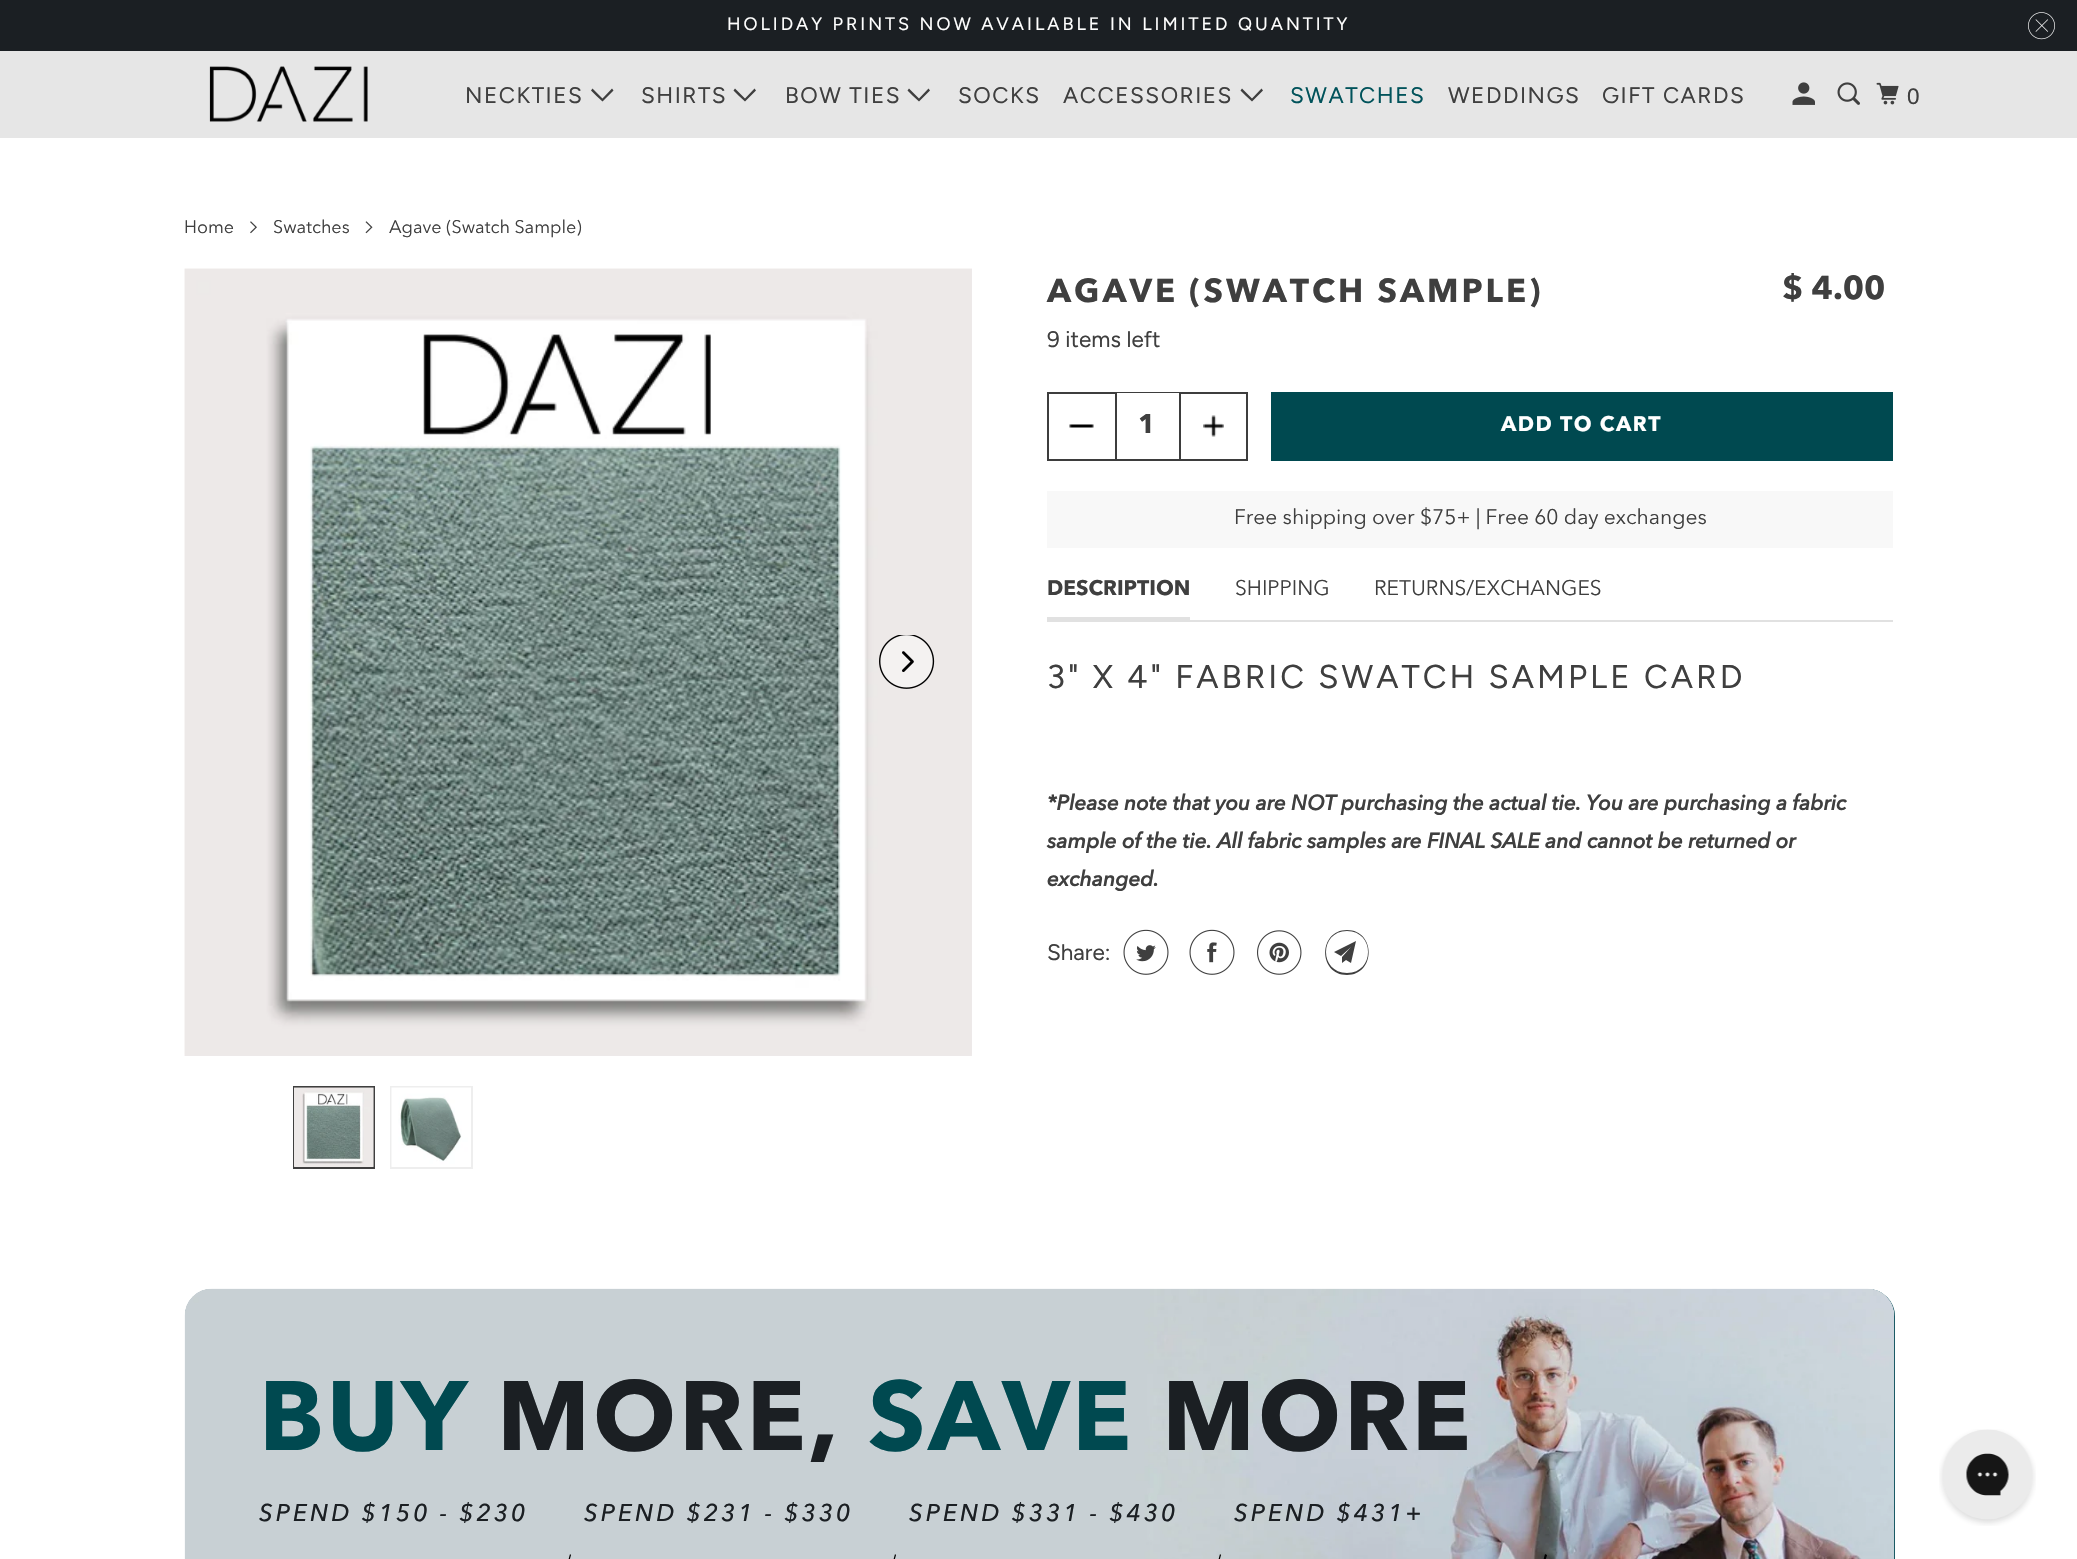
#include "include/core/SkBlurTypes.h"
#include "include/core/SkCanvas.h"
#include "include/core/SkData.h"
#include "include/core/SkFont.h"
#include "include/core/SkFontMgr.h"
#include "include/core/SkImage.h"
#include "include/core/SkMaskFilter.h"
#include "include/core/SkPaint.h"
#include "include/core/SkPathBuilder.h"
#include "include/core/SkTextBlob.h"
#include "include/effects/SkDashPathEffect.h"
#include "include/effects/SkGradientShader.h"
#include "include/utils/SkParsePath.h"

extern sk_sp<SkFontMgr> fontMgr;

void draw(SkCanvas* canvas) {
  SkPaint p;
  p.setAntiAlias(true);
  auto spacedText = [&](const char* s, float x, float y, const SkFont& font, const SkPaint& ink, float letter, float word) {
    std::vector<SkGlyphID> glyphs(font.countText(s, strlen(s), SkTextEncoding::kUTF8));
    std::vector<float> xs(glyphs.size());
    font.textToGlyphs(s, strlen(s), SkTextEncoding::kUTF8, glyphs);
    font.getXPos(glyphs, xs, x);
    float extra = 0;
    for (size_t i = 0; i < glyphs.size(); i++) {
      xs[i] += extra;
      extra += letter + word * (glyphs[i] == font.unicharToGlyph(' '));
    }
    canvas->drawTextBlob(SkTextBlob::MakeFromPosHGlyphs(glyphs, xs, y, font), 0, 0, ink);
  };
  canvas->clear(SK_ColorWHITE);
  p.setColor(SkColorSetRGB(27, 31, 35));
  canvas->drawRect(SkRect::MakeLTRB(0, 0, 2077, 51), p);
  canvas->drawImageRect(SkImages::DeferredFromEncodedData(SkData::MakeFromFileName("images/1.png")), SkRect::MakeLTRB(2028, 12, 2055, 40), SkSamplingOptions());
  p.setColor(SkColorSetRGB(230, 230, 230));
  canvas->drawRect(SkRect::MakeLTRB(0, 51, 2077, 138), p);
  canvas->drawImageRect(SkImages::DeferredFromEncodedData(SkData::MakeFromFileName("images/2.png")), SkRect::MakeLTRB(209, 66, 368, 122), SkSamplingOptions());
  p.setColor(SkColorSetRGB(63, 63, 63));
  canvas->drawPath(SkPathBuilder().moveTo(596.5f, 96).lineTo(591, 90.5f).lineTo(592.5f, 88.5f).lineTo(602.5f, 98.5f).lineTo(612, 88.5f).lineTo(613.5f, 90.5f).lineTo(602.5f, 101.5f).close().detach(), p);
  canvas->drawPath(SkPathBuilder().moveTo(739, 96).lineTo(733.5f, 90.5f).lineTo(735, 88.5f).lineTo(745, 98.5f).lineTo(754.5f, 88.5f).lineTo(756, 90.5f).lineTo(745, 101.5f).close().detach(), p);
  canvas->drawPath(SkPathBuilder().moveTo(913, 96).lineTo(907.5f, 90.5f).lineTo(909, 88.5f).lineTo(919, 98.5f).lineTo(928.5f, 88.5f).lineTo(930, 90.5f).lineTo(919, 101.5f).close().detach(), p);
  canvas->drawPath(SkPathBuilder().moveTo(1246, 96).lineTo(1240.5f, 90.5f).lineTo(1242, 88.5f).lineTo(1252, 98.5f).lineTo(1261.5f, 88.5f).lineTo(1263, 90.5f).lineTo(1252, 101.5f).close().detach(), p);
  canvas->drawImageRect(SkImages::DeferredFromEncodedData(SkData::MakeFromFileName("images/3.png")), SkRect::MakeLTRB(1792, 82, 1815, 105), SkSamplingOptions());
  canvas->drawImageRect(SkImages::DeferredFromEncodedData(SkData::MakeFromFileName("images/4.png")), SkRect::MakeLTRB(1837, 82, 1860, 105), SkSamplingOptions());
  canvas->drawImageRect(SkImages::DeferredFromEncodedData(SkData::MakeFromFileName("images/5.png")), SkRect::MakeLTRB(1876, 82, 1899, 105), SkSamplingOptions());
  canvas->drawImageRect(SkImages::DeferredFromEncodedData(SkData::MakeFromFileName("images/6.png")), SkRect::MakeLTRB(250, 221, 257, 234), SkSamplingOptions());
  canvas->drawImageRect(SkImages::DeferredFromEncodedData(SkData::MakeFromFileName("images/7.png")), SkRect::MakeLTRB(365, 221, 373, 234), SkSamplingOptions());
  canvas->drawImageRect(SkImages::DeferredFromEncodedData(SkData::MakeFromFileName("images/8.png")), SkRect::MakeLTRB(184, 268, 972, 1056), SkSamplingOptions());
  canvas->drawImageRect(SkImages::DeferredFromEncodedData(SkData::MakeFromFileName("images/9.png")), SkRect::MakeLTRB(879, 635, 935, 689), SkSamplingOptions());
  p.setStyle(SkPaint::kStroke_Style);
  p.setStrokeWidth(2);
  canvas->drawRect(SkRect::MakeLTRB(294, 1087, 374, 1168), p);
  canvas->drawImageRect(SkImages::DeferredFromEncodedData(SkData::MakeFromFileName("images/10.png")), SkRect::MakeLTRB(294, 1087, 374, 1167), SkSamplingOptions());
  p.setColor(SkColorSetRGB(238, 238, 238));
  canvas->drawRect(SkRect::MakeLTRB(391, 1087, 472, 1168), p);
  canvas->drawImageRect(SkImages::DeferredFromEncodedData(SkData::MakeFromFileName("images/11.png")), SkRect::MakeLTRB(391, 1087, 471, 1167), SkSamplingOptions());
  p.setColor(SkColorSetRGB(61, 61, 61));
  canvas->drawRect(SkRect::MakeLTRB(1048, 393, 1247, 460), p);
  canvas->drawImageRect(SkImages::DeferredFromEncodedData(SkData::MakeFromFileName("images/12.png")), SkRect::MakeLTRB(1069, 424, 1094, 428), SkSamplingOptions());
  p.setStyle(SkPaint::kFill_Style);
  p.setColor(SK_ColorWHITE);
  canvas->drawRect(SkRect::MakeLTRB(1117, 393, 1179, 394), p);
  p.setColor(SkColorSetRGB(61, 61, 61));
  canvas->drawRect(SkRect::MakeLTRB(1179, 393, 1181, 459), p);
  canvas->drawRect(SkRect::MakeLTRB(1115, 393, 1117, 459), p);
  canvas->drawImageRect(SkImages::DeferredFromEncodedData(SkData::MakeFromFileName("images/13.png")), SkRect::MakeLTRB(1203, 415, 1224, 437), SkSamplingOptions());
  p.setColor(SkColorSetRGB(0, 73, 80));
  canvas->drawRect(SkRect::MakeLTRB(1271, 392, 1893, 461), p);
  p.setColor(SkColorSetRGB(248, 248, 248));
  canvas->drawRect(SkRect::MakeLTRB(1047, 491, 1893, 548), p);
  p.setColor(SkColorSetRGB(225, 225, 225));
  canvas->drawRect(SkRect::MakeLTRB(1047, 620, 1893, 622), p);
  canvas->drawRect(SkRect::MakeLTRB(1047, 617, 1190, 620), p);
  canvas->drawImageRect(SkImages::DeferredFromEncodedData(SkData::MakeFromFileName("images/14.png")), SkRect::MakeLTRB(1123, 929, 1169, 975), SkSamplingOptions());
  canvas->drawImageRect(SkImages::DeferredFromEncodedData(SkData::MakeFromFileName("images/15.png")), SkRect::MakeLTRB(1189, 929, 1235, 975), SkSamplingOptions());
  canvas->drawImageRect(SkImages::DeferredFromEncodedData(SkData::MakeFromFileName("images/16.png")), SkRect::MakeLTRB(1257, 930, 1302, 975), SkSamplingOptions());
  p.setColor(SkColorSetRGB(63, 63, 63));
  canvas->drawPath(SkPathBuilder().moveTo(1351, 963).lineTo(1346, 960).lineTo(1342, 963).lineTo(1342, 957).lineTo(1351, 947).lineTo(1341, 956).lineTo(1334, 952).lineTo(1356, 941).close().moveTo(1347, 931).cubicTo(1319, 931, 1319, 973, 1347, 973).cubicTo(1375, 973, 1375, 931, 1347, 931).close().moveTo(1347, 975).cubicTo(1318, 975, 1318, 930, 1347, 930).cubicTo(1376, 930, 1376, 975, 1347, 975).close().detach(), p);
  p.setColor(SkColorSetRGB(1, 73, 84));
  canvas->drawRoundRect(SkRect::MakeLTRB(185, 1289, 1895, 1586), 27, 27, p);
  canvas->drawImageRect(SkImages::DeferredFromEncodedData(SkData::MakeFromFileName("images/17.png")), SkRect::MakeLTRB(184, 1288, 1895, 1559), SkSamplingOptions());
  p.setColor(SK_ColorBLACK);
  canvas->drawPath(SkPathBuilder().moveTo(570, 1554).lineTo(571, 1555).lineTo(540, 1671).lineTo(539, 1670).close().detach(), p);
  canvas->drawPath(SkPathBuilder().moveTo(895, 1554).lineTo(896, 1555).lineTo(865, 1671).lineTo(864, 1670).close().detach(), p);
  canvas->drawPath(SkPathBuilder().moveTo(1220, 1554).lineTo(1221, 1555).lineTo(1190, 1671).lineTo(1189, 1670).close().detach(), p);
  canvas->drawPath(SkPathBuilder().moveTo(1545, 1554).lineTo(1547, 1555).lineTo(1515, 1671).lineTo(1514, 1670).close().detach(), p);
  canvas->drawImageRect(SkImages::DeferredFromEncodedData(SkData::MakeFromFileName("images/18.png")), SkRect::MakeLTRB(1939, 1429, 2036, 1526), SkSamplingOptions());
  SkFont font1(fontMgr->matchFamilyStyle("Figtree", SkFontStyle::Normal()), 18);
  font1.setSubpixel(true);
  p.setColor(SK_ColorWHITE);
  spacedText("HOLIDAY PRINTS NOW AVAILABLE IN LIMITED QUANTITY", 727, 30, font1, p, 3, 0);
  SkFont font2(fontMgr->matchFamilyStyle("Figtree", SkFontStyle::Normal()), 22.5f);
  font2.setSubpixel(true);
  p.setColor(SkColorSetRGB(63, 63, 63));
  spacedText("NECKTIES", 465, 103, font2, p, 1.5f, 0);
  spacedText("SHIRTS", 641, 103, font2, p, 1.5f, 0);
  spacedText("BOW TIES", 785, 103, font2, p, 1.5f, 0);
  spacedText("SOCKS", 958, 103, font2, p, 1.5f, 0);
  spacedText("ACCESSORIES", 1063, 103, font2, p, 1.5f, 0);
  p.setColor(SkColorSetRGB(1, 83, 91));
  spacedText("SWATCHES", 1290, 103, font2, p, 1.5f, 0);
  p.setColor(SkColorSetRGB(63, 63, 63));
  spacedText("WEDDINGS", 1448, 103, font2, p, 1.5f, 0);
  spacedText("GIFT CARDS", 1602, 103, font2, p, 1.5f, 0);
  SkFont font3(fontMgr->matchFamilyStyle("Liberation Sans", SkFontStyle::Normal()), 22.5f);
  font3.setSubpixel(true);
  canvas->drawString("0", 1907, 104, font3, p);
  SkFont font4(fontMgr->matchFamilyStyle("Avenir Next", SkFontStyle::Normal()), 18);
  font4.setSubpixel(true);
  canvas->drawString("Home", 184, 233, font4, p);
  canvas->drawString("Swatches", 273, 233, font4, p);
  canvas->drawString("Agave (Swatch Sample)", 389, 233, font4, p);
  SkFont font5(fontMgr->matchFamilyStyle("Avenir Next", SkFontStyle::Bold()), 33);
  font5.setSubpixel(true);
  spacedText("AGAVE (SWATCH SAMPLE)", 1047, 302, font5, p, 3, 0);
  canvas->drawString("$ 4.00", 1782, 299, font5, p);
  canvas->drawString("9 items left", 1047, 347, font2, p);
  SkFont font6(fontMgr->matchFamilyStyle("Avenir Next", SkFontStyle::Bold()), 27);
  font6.setSubpixel(true);
  canvas->drawString("1", 1138, 433, font6, p);
  SkFont font7(fontMgr->matchFamilyStyle("Avenir Next", SkFontStyle::Bold()), 21);
  font7.setSubpixel(true);
  p.setColor(SK_ColorWHITE);
  spacedText("ADD TO CART", 1501, 431, font7, p, 1.5f, 0);
  SkFont font8(fontMgr->matchFamilyStyle("Avenir Next", SkFontStyle::Normal()), 21);
  font8.setSubpixel(true);
  p.setColor(SkColorSetRGB(63, 63, 63));
  canvas->drawString("Free shipping over $75+ | Free 60 day exchanges", 1234, 524, font8, p);
  canvas->drawString("DESCRIPTION", 1047, 595, font7, p);
  canvas->drawString("SHIPPING", 1235, 595, font8, p);
  canvas->drawString("RETURNS/EXCHANGES", 1374, 595, font8, p);
  SkFont font9(fontMgr->matchFamilyStyle("Figtree", SkFontStyle::Normal()), 33);
  font9.setSubpixel(true);
  spacedText("3\" X 4\" FABRIC SWATCH SAMPLE CARD", 1047, 688, font9, p, 3, 0);
  SkFont font10(fontMgr->matchFamilyStyle("Avenir Next", SkFontStyle::BoldItalic()), 21);
  font10.setSubpixel(true);
  canvas->drawString("*Please note that you are NOT purchasing the actual tie. You are purchasing a fabric", 1047, 810, font10, p);
  canvas->drawString("sample of the tie. All fabric samples are FINAL SALE and cannot be returned or", 1047, 848, font10, p);
  canvas->drawString("exchanged.", 1047, 886, font10, p);
  canvas->drawString("Share:", 1047, 960, font2, p);
  SkFont font11(fontMgr->matchFamilyStyle("Avenir Next", SkFontStyle::Bold()), 97.5f);
  font11.setSubpixel(true);
  p.setColor(SkColorSetRGB(0, 73, 80));
  spacedText("BUY", 259, 1450, font11, p, 3, 0);
  p.setColor(SkColorSetRGB(27, 31, 35));
  spacedText("MORE,", 497, 1450, font11, p, 3, 0);
  p.setColor(SkColorSetRGB(0, 73, 80));
  spacedText("SAVE", 868, 1450, font11, p, 3, 0);
  p.setColor(SkColorSetRGB(27, 31, 35));
  spacedText("MORE", 1162, 1450, font11, p, 3, 0);
  SkFont font12(fontMgr->matchFamilyStyle("Avenir Next", SkFontStyle(500, SkFontStyle::kNormal_Width, SkFontStyle::kItalic_Slant)), 24);
  font12.setSubpixel(true);
  spacedText("SPEND $150 - $230", 259, 1521, font12, p, 3, 0);
  spacedText("SPEND $231 - $330", 584, 1521, font12, p, 3, 0);
  spacedText("SPEND $331 - $430", 909, 1521, font12, p, 3, 0);
  spacedText("SPEND $431+", 1234, 1521, font12, p, 3, 0);
}
